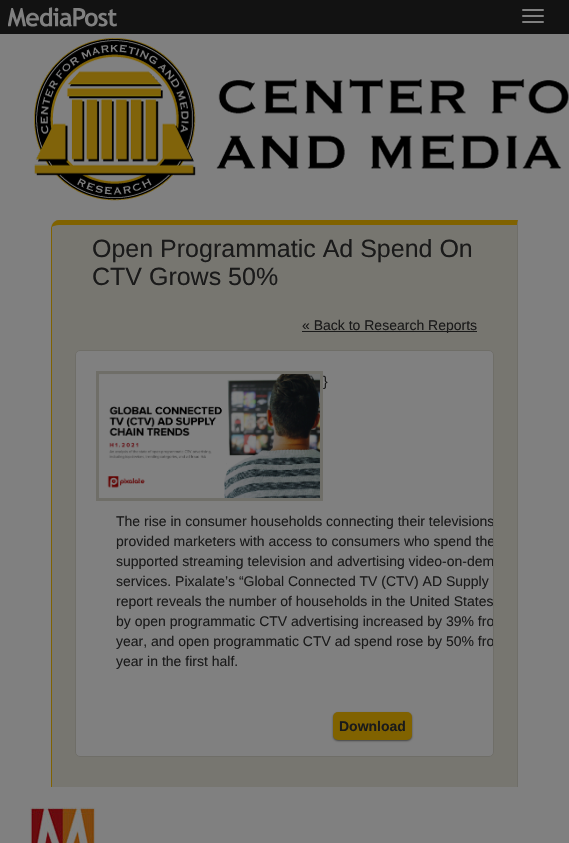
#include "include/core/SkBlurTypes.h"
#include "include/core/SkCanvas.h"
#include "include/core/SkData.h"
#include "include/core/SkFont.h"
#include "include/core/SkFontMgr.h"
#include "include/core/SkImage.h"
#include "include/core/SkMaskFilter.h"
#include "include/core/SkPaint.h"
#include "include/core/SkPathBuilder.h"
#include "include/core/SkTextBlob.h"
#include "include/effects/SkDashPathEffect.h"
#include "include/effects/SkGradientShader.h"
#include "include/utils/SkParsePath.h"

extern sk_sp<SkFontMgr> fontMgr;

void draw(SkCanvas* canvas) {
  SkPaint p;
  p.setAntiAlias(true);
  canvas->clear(SkColorSetRGB(128, 128, 128));
  p.setColor(SkColorSetRGB(18, 18, 18));
  canvas->drawRect(SkRect::MakeLTRB(0, 0, 569, 34), p);
  canvas->drawImageRect(SkImages::DeferredFromEncodedData(SkData::MakeFromFileName("images/1.png")), SkRect::MakeLTRB(8, 7, 117, 27), SkSamplingOptions());
  p.setColor(SkColorSetRGB(128, 128, 128));
  canvas->drawRoundRect(SkRect::MakeLTRB(522, 9, 544, 11), 1, 1, p);
  canvas->drawRoundRect(SkRect::MakeLTRB(522, 15, 544, 17), 1, 1, p);
  canvas->drawRoundRect(SkRect::MakeLTRB(522, 21, 544, 23), 1, 1, p);
  canvas->drawImageRect(SkImages::DeferredFromEncodedData(SkData::MakeFromFileName("images/2.png")), SkRect::MakeLTRB(34, 38, 569, 201), SkSamplingOptions());
  p.setColor(SkColorSetRGB(119, 118, 112));
  canvas->drawPath(SkPathBuilder().moveTo(59, 220).lineTo(518, 220).lineTo(518, 787).lineTo(51, 787).lineTo(51, 228).cubicTo(51, 223.5f, 54.5f, 220, 59, 220).close().detach(), p);
  p.setColor(SkColorSetRGB(128, 98, 0));
  canvas->drawPath(SkPathBuilder().moveTo(59, 220).cubicTo(56, 220, 53, 222, 52, 225).lineTo(52, 227).cubicTo(53, 226, 56, 225, 59, 225).lineTo(517, 225).lineTo(518, 220).close().detach(), p);
  p.setColor(SkColorSetRGB(111, 110, 104));
  canvas->drawPath(SkPathBuilder().moveTo(518, 220).lineTo(517, 225).lineTo(517, 787).lineTo(518, 787).close().detach(), p);
  p.setColor(SkColorSetRGB(128, 98, 0));
  canvas->drawPath(SkPathBuilder().moveTo(51, 787).lineTo(52, 787).lineTo(52, 228).lineTo(52, 227).lineTo(52, 225).lineTo(51, 228).close().detach(), p);
  p.setColor(SkColorSetRGB(26, 26, 26));
  canvas->drawRect(SkRect::MakeLTRB(302, 331, 477, 332), p);
  p.setColor(SkColorSetRGB(128, 128, 128));
  canvas->drawRoundRect(SkRect::MakeLTRB(75.5f, 350.5f, 493.5f, 756.5f), 4.5f, 4.5f, p);
  p.setStyle(SkPaint::kStroke_Style);
  p.setStrokeWidth(1);
  p.setColor(SkColorSetRGB(111, 110, 104));
  canvas->drawRoundRect(SkRect::MakeLTRB(75.5f, 350.5f, 493.5f, 756.5f), 4.5f, 4.5f, p);
  p.setStyle(SkPaint::kFill_Style);
  canvas->drawRect(SkRect::MakeLTRB(96, 371, 323, 501), p);
  canvas->drawImageRect(SkImages::DeferredFromEncodedData(SkData::MakeFromFileName("images/3.png")), SkRect::MakeLTRB(99, 374, 320, 498), SkSamplingOptions());
  p.setColor(SkColorSetRGB(68, 68, 68));
  p.setMaskFilter(SkMaskFilter::MakeBlur(kNormal_SkBlurStyle, 1));
  canvas->drawRoundRect(SkRect::MakeLTRB(333, 713, 412, 741), 5, 5, p);
  p.setMaskFilter(nullptr);
  p.setColor(SkColorSetRGB(128, 98, 0));
  canvas->drawRoundRect(SkRect::MakeLTRB(333, 712, 412, 740), 5, 5, p);
  canvas->drawImageRect(SkImages::DeferredFromEncodedData(SkData::MakeFromFileName("images/4.png")), SkRect::MakeLTRB(30, 807, 96, 843), SkSamplingOptions());
  SkFont font1(fontMgr->matchFamilyStyle("Liberation Sans", SkFontStyle::Normal()), 25);
  font1.setSubpixel(true);
  p.setColor(SkColorSetRGB(26, 26, 26));
  canvas->drawString("Open Programmatic Ad Spend On", 92, 257, font1, p);
  canvas->drawString("CTV Grows 50%", 92, 285, font1, p);
  SkFont font2(fontMgr->matchFamilyStyle("Liberation Sans", SkFontStyle::Normal()), 14);
  font2.setSubpixel(true);
  canvas->drawString("« Back to Research Reports", 302, 330, font2, p);
  canvas->drawString("}", 323, 386, font2, p);
  canvas->save();
  canvas->clipPath(SkPathBuilder().moveTo(80, 351).lineTo(489, 351).cubicTo(491, 351, 493, 353, 493, 355).lineTo(493, 752).cubicTo(493, 754, 491, 756, 489, 756).lineTo(80, 756).cubicTo(78, 756, 76, 754, 76, 752).lineTo(76, 355).cubicTo(76, 353, 78, 351, 80, 351).close().detach(), true);
  canvas->drawString("The rise in consumer households connecting their televisions", 116, 526, font2, p);
  canvas->drawString("provided marketers with access to consumers who spend the", 116, 546, font2, p);
  canvas->drawString("supported streaming television and advertising video-on-dem", 116, 566, font2, p);
  canvas->restore();
  canvas->drawString("services. Pixalate’s “Global Connected TV (CTV) AD Supply", 116, 586, font2, p);
  canvas->drawString("report reveals the number of households in the United States", 116, 606, font2, p);
  canvas->save();
  canvas->clipPath(SkPathBuilder().moveTo(80, 351).lineTo(489, 351).cubicTo(491, 351, 493, 353, 493, 355).lineTo(493, 752).cubicTo(493, 754, 491, 756, 489, 756).lineTo(80, 756).cubicTo(78, 756, 76, 754, 76, 752).lineTo(76, 355).cubicTo(76, 353, 78, 351, 80, 351).close().detach(), true);
  canvas->drawString("by open programmatic CTV advertising increased by 39% fro", 116, 626, font2, p);
  canvas->drawString("year, and open programmatic CTV ad spend rose by 50% fro", 116, 646, font2, p);
  canvas->restore();
  canvas->drawString("year in the first half.", 116, 666, font2, p);
  SkFont font3(fontMgr->matchFamilyStyle("Liberation Sans", SkFontStyle::Bold()), 14);
  font3.setSubpixel(true);
  canvas->drawString("Download", 339, 731, font3, p);
}
